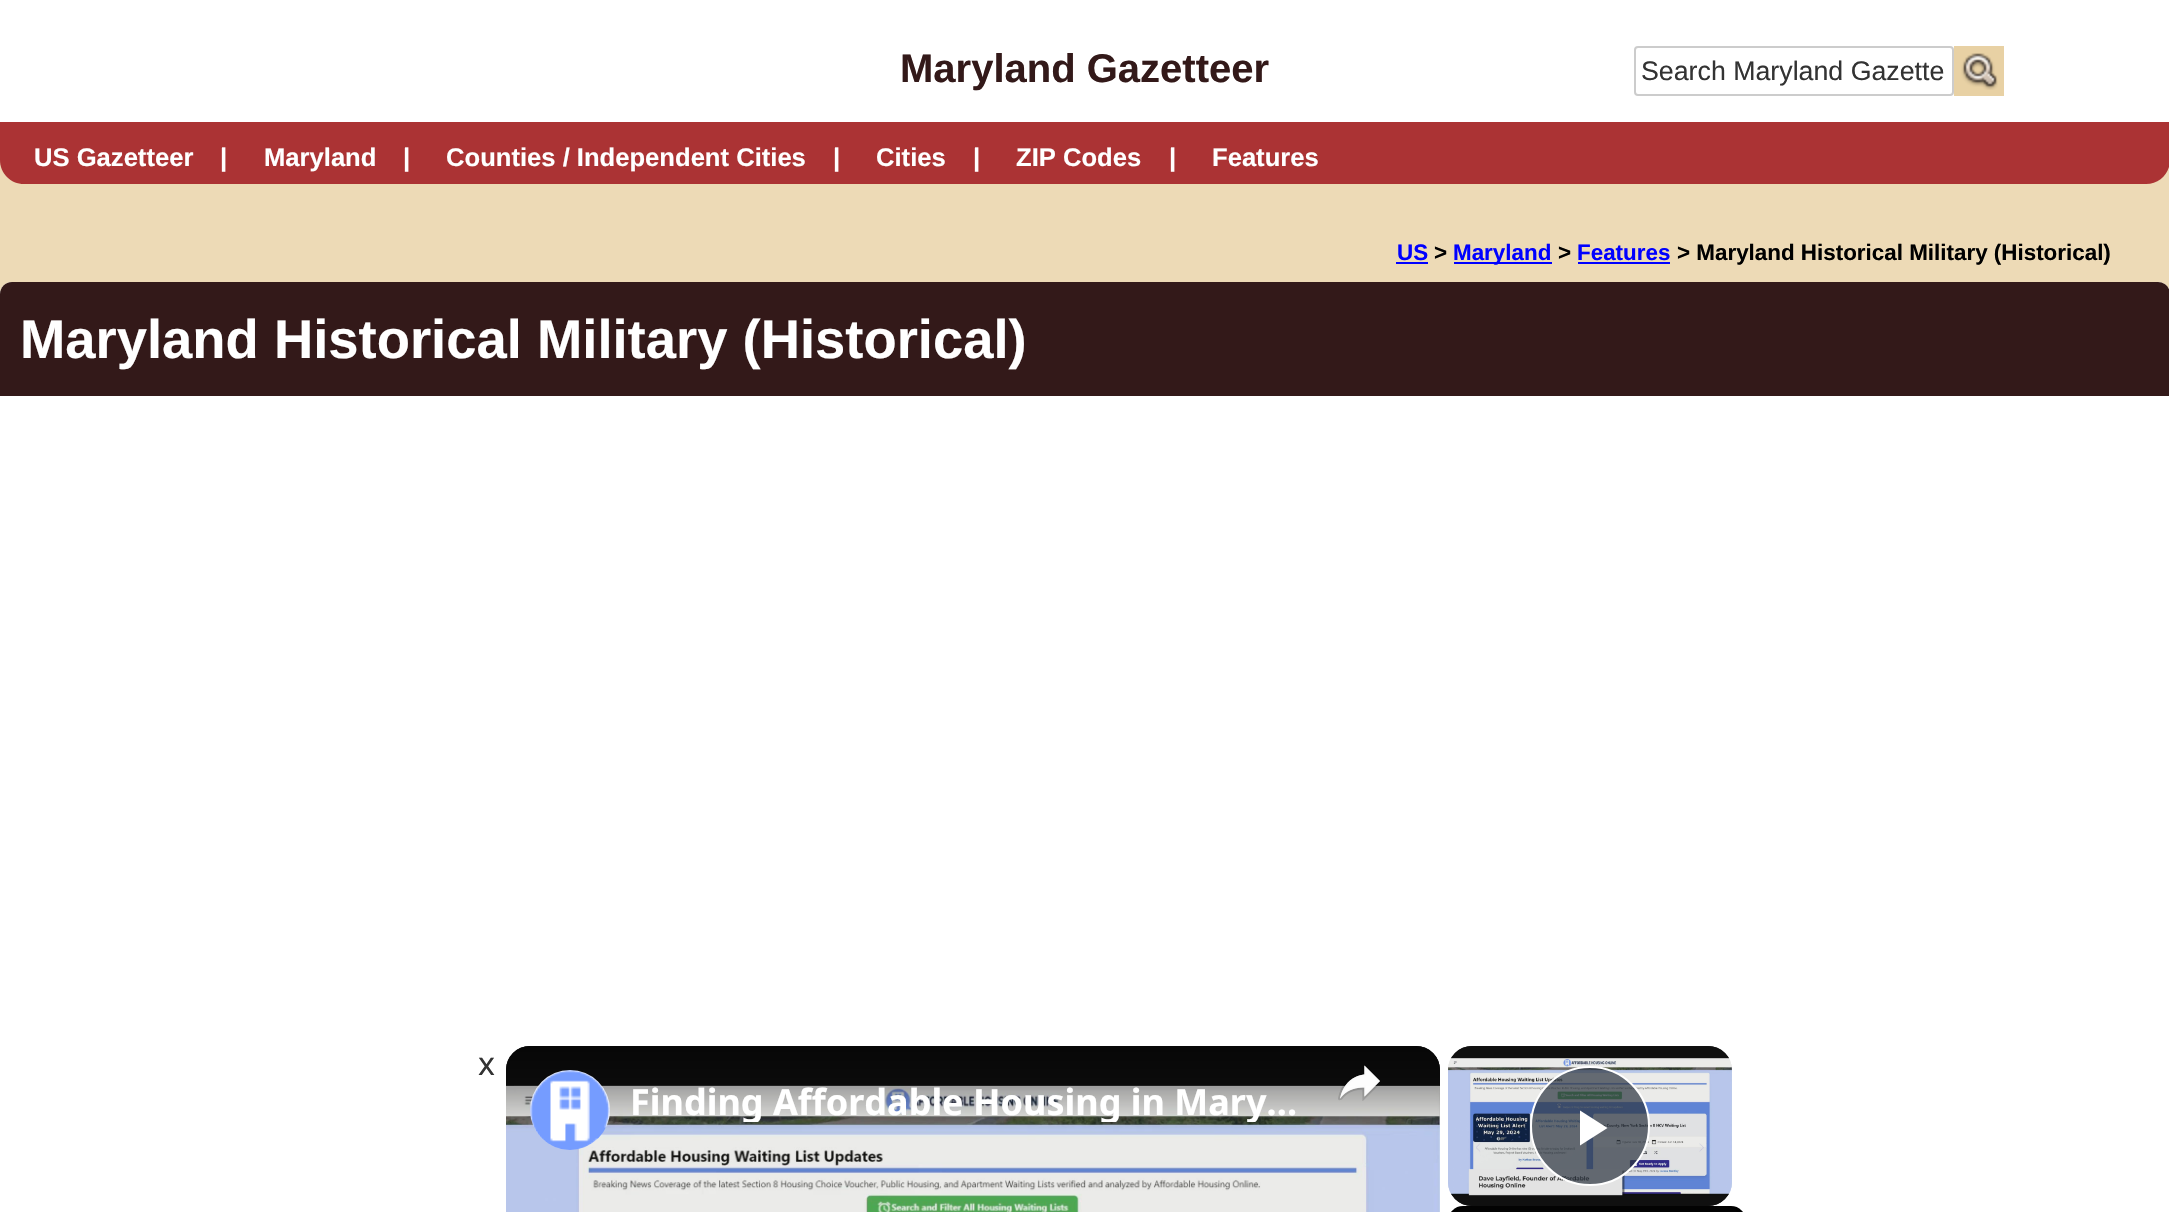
#include "include/core/SkBlurTypes.h"
#include "include/core/SkCanvas.h"
#include "include/core/SkData.h"
#include "include/core/SkFont.h"
#include "include/core/SkFontMgr.h"
#include "include/core/SkImage.h"
#include "include/core/SkMaskFilter.h"
#include "include/core/SkPaint.h"
#include "include/core/SkPathBuilder.h"
#include "include/core/SkTextBlob.h"
#include "include/effects/SkDashPathEffect.h"
#include "include/effects/SkGradientShader.h"
#include "include/utils/SkParsePath.h"

extern sk_sp<SkFontMgr> fontMgr;

void draw(SkCanvas* canvas) {
  SkPaint p;
  p.setAntiAlias(true);
  canvas->clear(SkColorSetRGB(237, 218, 182));
  p.setColor(SK_ColorWHITE);
  canvas->drawRect(SkRect::MakeLTRB(0, 0, 2169, 122), p);
  p.setStyle(SkPaint::kStroke_Style);
  p.setStrokeWidth(2);
  p.setColor(SkColorSetRGB(204, 204, 204));
  canvas->drawRoundRect(SkRect::MakeLTRB(1635, 47, 1953, 95), 3, 3, p);
  p.setStyle(SkPaint::kFill_Style);
  p.setColor(SkColorSetRGB(232, 209, 164));
  canvas->drawRect(SkRect::MakeLTRB(1954, 46, 2004, 96), p);
  canvas->drawImageRect(SkImages::DeferredFromEncodedData(SkData::MakeFromFileName("images/1.png")), SkRect::MakeLTRB(1961, 53, 1998, 90), SkSamplingOptions());
  p.setColor(SkColorSetRGB(171, 51, 52));
  canvas->drawPath(SkPathBuilder().moveTo(0, 122).lineTo(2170, 122).lineTo(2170, 160).cubicTo(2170, 173.5f, 2159.5f, 184, 2146, 184).lineTo(24, 184).cubicTo(10.5f, 184, 0, 173.5f, 0, 160).close().detach(), p);
  p.setColor(SkColorSetRGB(0, 0, 255));
  canvas->drawRect(SkRect::MakeLTRB(1396, 262, 1428, 264), p);
  canvas->drawRect(SkRect::MakeLTRB(1454, 262, 1552, 264), p);
  canvas->drawRect(SkRect::MakeLTRB(1578, 262, 1670, 264), p);
  p.setColor(SK_ColorWHITE);
  canvas->drawRoundRect(SkRect::MakeLTRB(0, 282, 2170, 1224), 12, 12, p);
  p.setColor(SkColorSetRGB(51, 25, 25));
  canvas->drawPath(SkPathBuilder().moveTo(12, 282).lineTo(2158, 282).cubicTo(2164.5f, 282, 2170, 287.5f, 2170, 294).lineTo(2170, 396).lineTo(0, 396).lineTo(0, 294).cubicTo(0, 287.5f, 5.5f, 282, 12, 282).close().detach(), p);
  canvas->drawImageRect(SkImages::DeferredFromEncodedData(SkData::MakeFromFileName("images/2.png")), SkRect::MakeLTRB(506, 1046, 1440, 1212), SkSamplingOptions());
  canvas->drawImageRect(SkImages::DeferredFromEncodedData(SkData::MakeFromFileName("images/3.png")), SkRect::MakeLTRB(506, 1046, 1440, 1070), SkSamplingOptions());
  {
    const SkColor colors[] = {SkColorSetARGB(153, 0, 0, 0), SkColorSetARGB(0, 0, 0, 0), SkColorSetARGB(0, 0, 0, 0), SkColorSetARGB(204, 0, 0, 0)};
    const float stops[] = {0, 0.16f, 0.84f, 1};
    const SkPoint ends[] = {{973, 1046}, {973, 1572}};
    p.setShader(SkGradientShader::MakeLinear(ends, colors, stops, 4, SkTileMode::kClamp));
    p.setAlpha(255);
  }
  canvas->drawRoundRect(SkRect::MakeLTRB(506, 1046, 1440, 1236), 24, 24, p);
  canvas->drawImageRect(SkImages::DeferredFromEncodedData(SkData::MakeFromFileName("images/4.png")), SkRect::MakeLTRB(530, 1070, 610, 1150), SkSamplingOptions());
  canvas->drawImageRect(SkImages::DeferredFromEncodedData(SkData::MakeFromFileName("images/5.png")), SkRect::MakeLTRB(1338, 1065, 1380, 1101), SkSamplingOptions());
  canvas->drawImageRect(SkImages::DeferredFromEncodedData(SkData::MakeFromFileName("images/6.png")), SkRect::MakeLTRB(1448, 1046, 1732, 1206), SkSamplingOptions());
  canvas->drawImageRect(SkImages::DeferredFromEncodedData(SkData::MakeFromFileName("images/7.png")), SkRect::MakeLTRB(1448, 1046, 1732, 1206), SkSamplingOptions());
  p.setShader(nullptr);
  p.setColor(SkColorSetARGB(179, 43, 51, 63));
  canvas->drawCircle(1590, 1126, 59, p);
  p.setStyle(SkPaint::kStroke_Style);
  p.setColor(SK_ColorWHITE);
  canvas->drawCircle(1590, 1126, 59, p);
  p.setStyle(SkPaint::kFill_Style);
  canvas->drawPath(SkPathBuilder().moveTo(1580, 1110.5f).lineTo(1580, 1145.5f).lineTo(1607.5f, 1128).close().detach(), p);
  p.setColor(SK_ColorBLACK);
  canvas->drawRoundRect(SkRect::MakeLTRB(1448, 1206, 1746, 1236), 24, 24, p);
  canvas->drawImageRect(SkImages::DeferredFromEncodedData(SkData::MakeFromFileName("images/8.png")), SkRect::MakeLTRB(1456, 1206, 1738, 1212), SkSamplingOptions());
  SkFont font1(fontMgr->matchFamilyStyle("Liberation Sans", SkFontStyle::Bold()), 40);
  font1.setSubpixel(true);
  p.setColor(SkColorSetRGB(51, 25, 25));
  canvas->drawString("Maryland Gazetteer", 900, 82, font1, p);
  SkFont font2(fontMgr->matchFamilyStyle("Liberation Sans", SkFontStyle::Normal()), 26.75f);
  font2.setSubpixel(true);
  p.setColor(SkColorSetRGB(51, 51, 51));
  canvas->drawString("Search Maryland Gazette", 1641, 80, font2, p);
  SkFont font3(fontMgr->matchFamilyStyle("Liberation Sans", SkFontStyle::Bold()), 25.6f);
  font3.setSubpixel(true);
  p.setColor(SK_ColorWHITE);
  canvas->drawString("US Gazetteer", 34, 166, font3, p);
  canvas->drawString("|", 220, 166, font3, p);
  canvas->drawString("Maryland", 264, 166, font3, p);
  canvas->drawString("|", 403, 166, font3, p);
  canvas->drawString("Counties / Independent Cities", 446, 166, font3, p);
  canvas->drawString("|", 833, 166, font3, p);
  canvas->drawString("Cities", 876, 166, font3, p);
  canvas->drawString("|", 973, 166, font3, p);
  canvas->drawString("ZIP Codes", 1016, 166, font3, p);
  canvas->drawString("|", 1169, 166, font3, p);
  canvas->drawString("Features", 1212, 166, font3, p);
  SkFont font4(fontMgr->matchFamilyStyle("Liberation Sans", SkFontStyle::Bold()), 22.4f);
  font4.setSubpixel(true);
  p.setColor(SkColorSetRGB(0, 0, 255));
  canvas->drawString("US", 1397, 260, font4, p);
  p.setColor(SK_ColorBLACK);
  canvas->drawString(">", 1434, 260, font4, p);
  p.setColor(SkColorSetRGB(0, 0, 255));
  canvas->drawString("Maryland", 1453, 260, font4, p);
  p.setColor(SK_ColorBLACK);
  canvas->drawString(">", 1558, 260, font4, p);
  p.setColor(SkColorSetRGB(0, 0, 255));
  canvas->drawString("Features", 1577, 260, font4, p);
  p.setColor(SK_ColorBLACK);
  canvas->drawString("> Maryland Historical Military (Historical)", 1677, 260, font4, p);
  SkFont font5(fontMgr->matchFamilyStyle("Liberation Sans", SkFontStyle::Bold()), 54.4f);
  font5.setSubpixel(true);
  p.setColor(SK_ColorWHITE);
  canvas->drawString("Maryland Historical Military (Historical)", 20, 358, font5, p);
  SkFont font6(fontMgr->matchFamilyStyle("Noto Sans", SkFontStyle::Normal()), 32);
  font6.setSubpixel(true);
  p.setColor(SkColorSetRGB(51, 51, 51));
  canvas->drawString("x", 478, 1075, font6, p);
  canvas->save();
  canvas->clipRect(SkRect::MakeLTRB(630, 1082, 1304, 1122));
  SkFont font7(fontMgr->matchFamilyStyle("Noto Sans", SkFontStyle::Bold()), 36);
  font7.setSubpixel(true);
  p.setColor(SK_ColorWHITE);
  canvas->drawString("Finding Affordable Housing in Mary…", 630, 1115, font7, p);
  canvas->restore();
}
